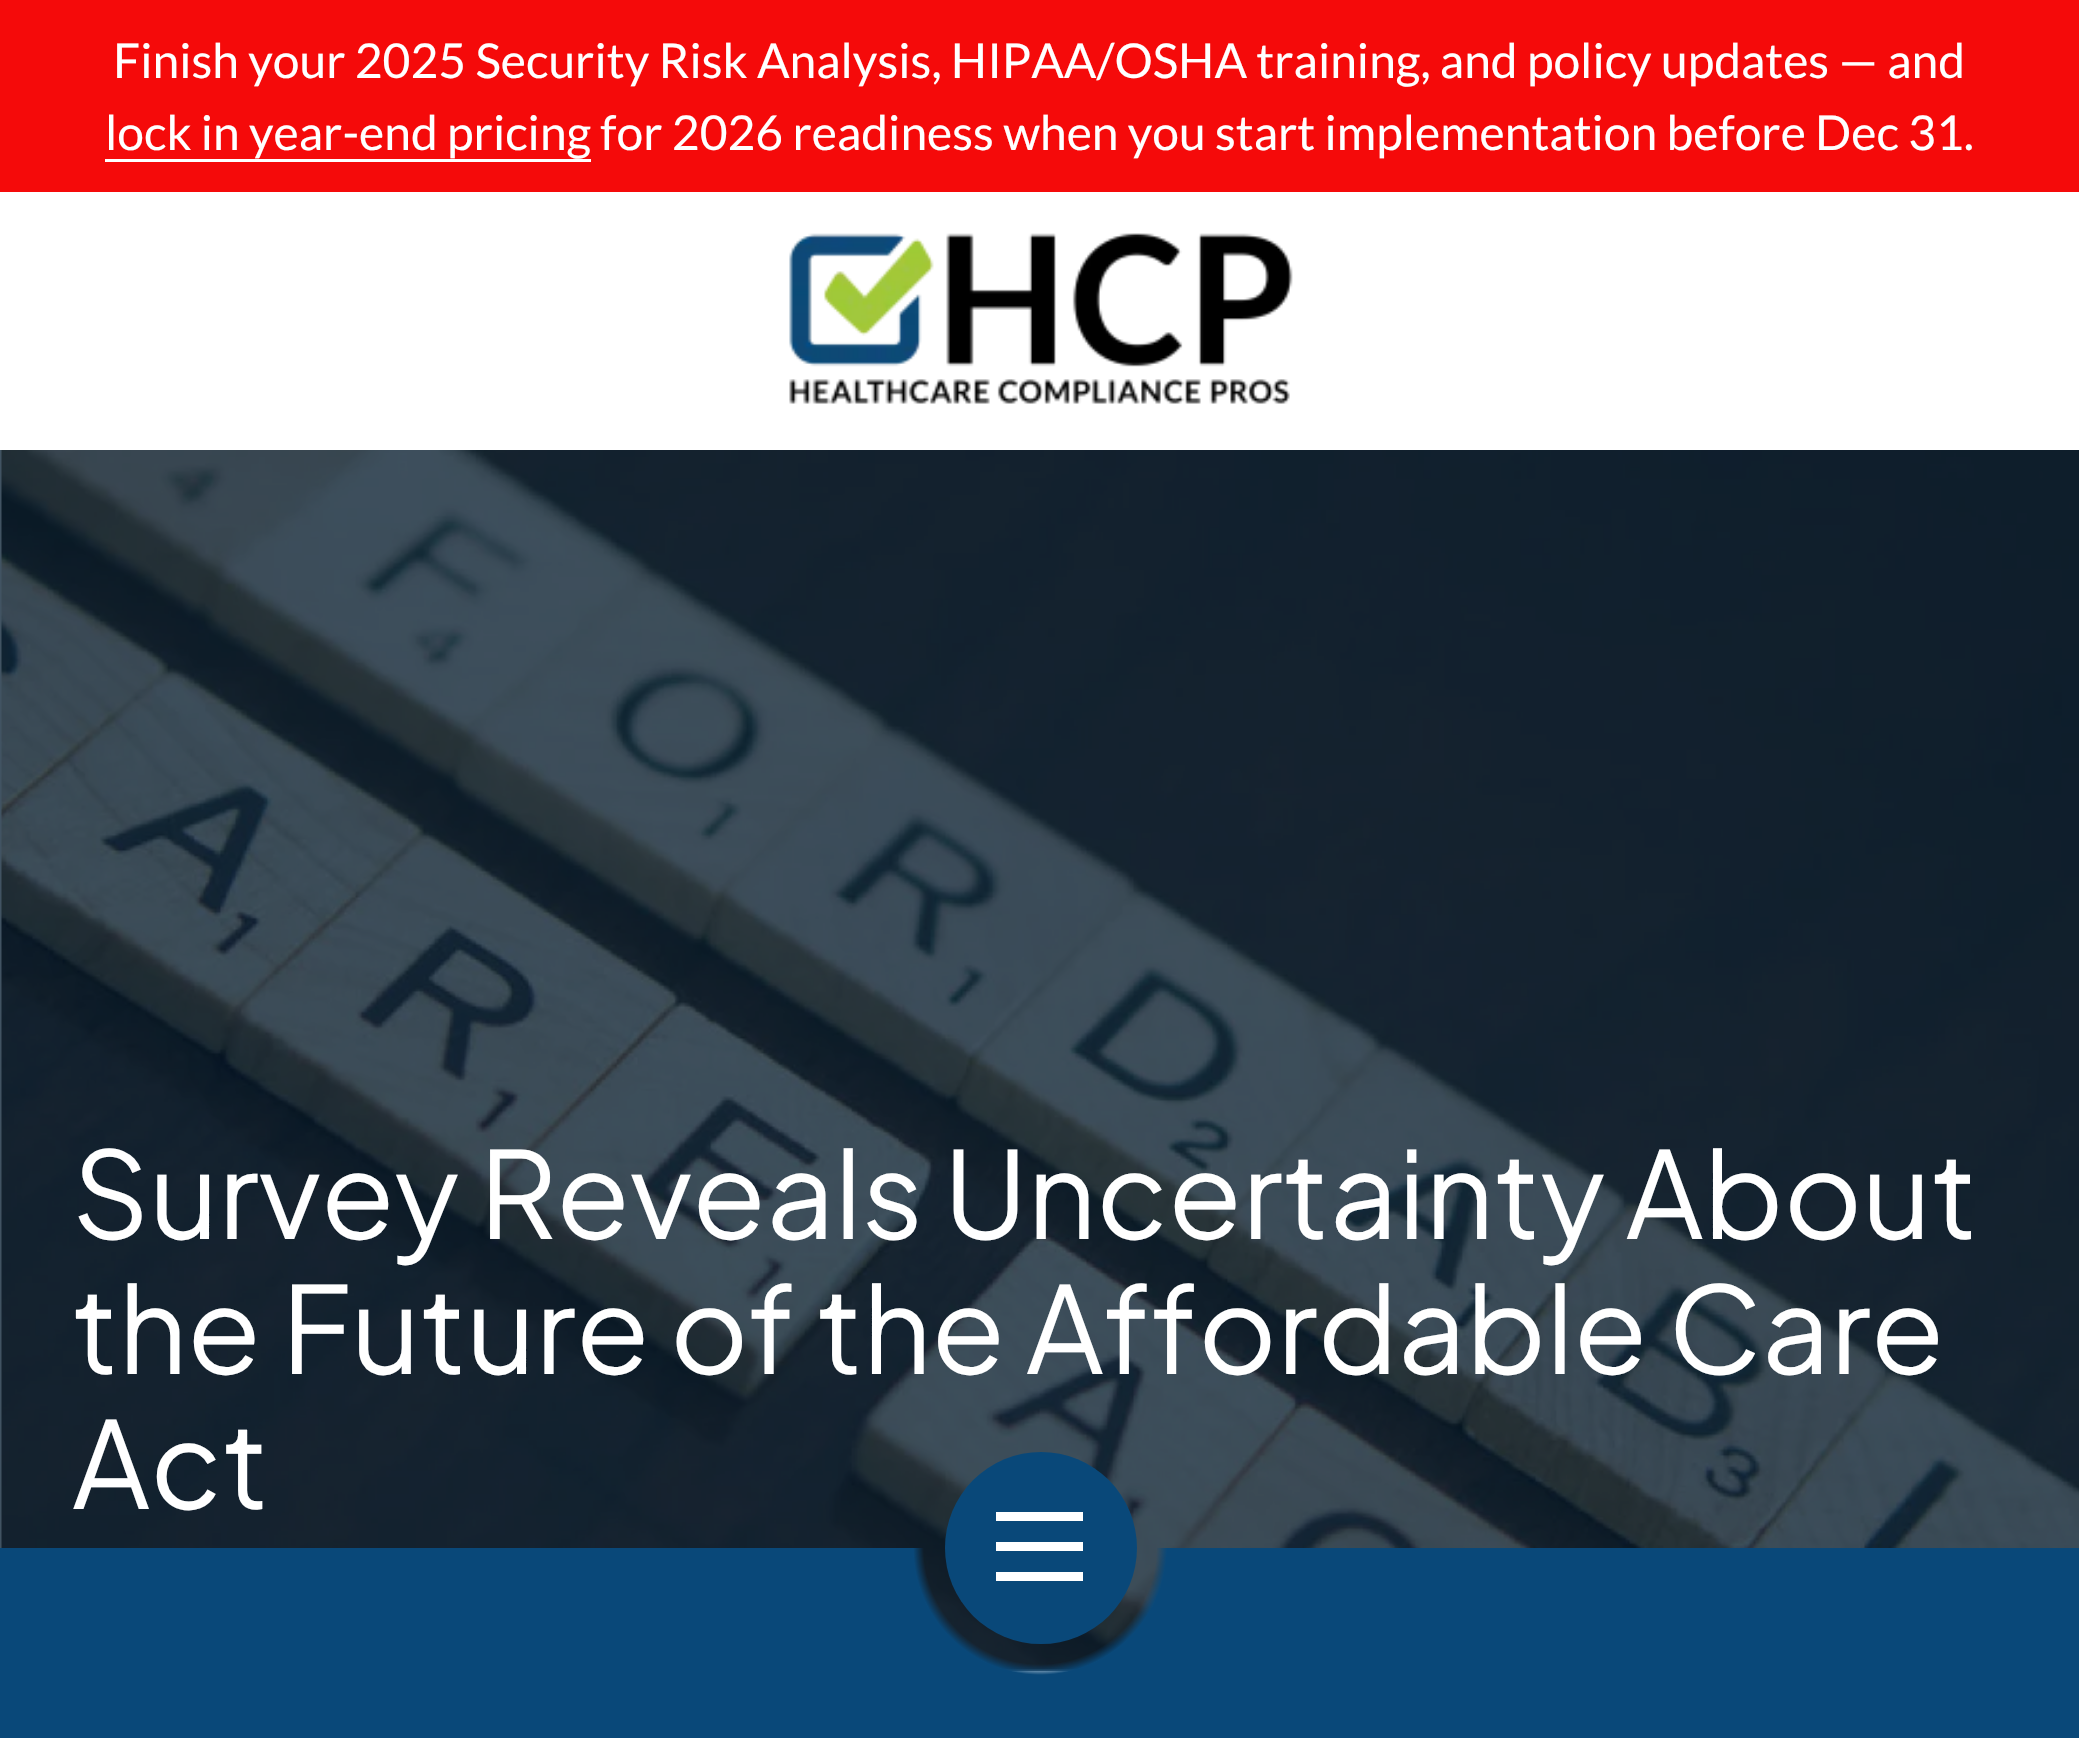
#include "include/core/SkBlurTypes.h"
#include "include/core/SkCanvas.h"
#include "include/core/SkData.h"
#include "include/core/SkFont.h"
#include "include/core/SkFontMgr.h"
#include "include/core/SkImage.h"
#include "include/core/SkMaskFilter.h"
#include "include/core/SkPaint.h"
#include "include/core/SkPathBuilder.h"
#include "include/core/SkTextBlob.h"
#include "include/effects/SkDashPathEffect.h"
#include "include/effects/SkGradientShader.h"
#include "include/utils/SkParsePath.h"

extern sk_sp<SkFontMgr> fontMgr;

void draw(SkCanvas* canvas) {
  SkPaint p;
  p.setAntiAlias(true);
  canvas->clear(SK_ColorWHITE);
  p.setColor(SkColorSetRGB(65, 83, 98));
  canvas->drawRect(SkRect::MakeLTRB(0, 450, 1076, 1671), p);
  p.setColor(SkColorSetRGB(245, 10, 10));
  canvas->drawRect(SkRect::MakeLTRB(0, 0, 2079, 192), p);
  p.setColor(SK_ColorWHITE);
  canvas->drawRect(SkRect::MakeLTRB(105, 159, 591, 162), p);
  canvas->drawImageRect(SkImages::DeferredFromEncodedData(SkData::MakeFromFileName("images/1.png")), SkRect::MakeLTRB(789, 233, 1293, 404), SkSamplingOptions());
  canvas->drawImageRect(SkImages::DeferredFromEncodedData(SkData::MakeFromFileName("images/2.png")), SkRect::MakeLTRB(1, 450, 2079, 1670), SkSamplingOptions());
  {
    const SkColor colors[] = {SkColorSetARGB(0, 9, 72, 121), SkColorSetRGB(9, 72, 121)};
    const float stops[] = {0.11f, 0.12f};
    p.setShader(SkGradientShader::MakeRadial({1040, 1548}, 1057, colors, stops, 2, SkTileMode::kClamp));
    p.setAlpha(255);
  }
  canvas->drawRect(SkRect::MakeLTRB(0, 1548, 2079, 1738), p);
  p.setShader(nullptr);
  p.setColor(SkColorSetRGB(9, 72, 121));
  canvas->drawCircle(1041, 1548, 96, p);
  p.setColor(SK_ColorWHITE);
  canvas->drawRect(SkRect::MakeLTRB(996, 1542, 1083, 1551), p);
  canvas->drawRect(SkRect::MakeLTRB(996, 1512, 1083, 1521), p);
  canvas->drawRect(SkRect::MakeLTRB(996, 1572, 1083, 1581), p);
  SkFont font1(fontMgr->matchFamilyStyle("Lato", SkFontStyle::Normal()), 48);
  font1.setSubpixel(true);
  canvas->drawString("Finish your 2025 Security Risk Analysis, HIPAA/OSHA training, and policy updates — and", 113, 78, font1, p);
  canvas->drawString("lock in year-end pricing for 2026 readiness when you start implementation before Dec 31.", 105, 150, font1, p);
  SkFont font2(fontMgr->matchFamilyStyle("Plus Jakarta Sans", SkFontStyle::Normal()), 120);
  font2.setSubpixel(true);
  canvas->drawString("Survey Reveals Uncertainty About", 72, 1239, font2, p);
  canvas->drawString("the Future of the Affordable Care", 72, 1374, font2, p);
  canvas->drawString("Act", 72, 1509, font2, p);
}
